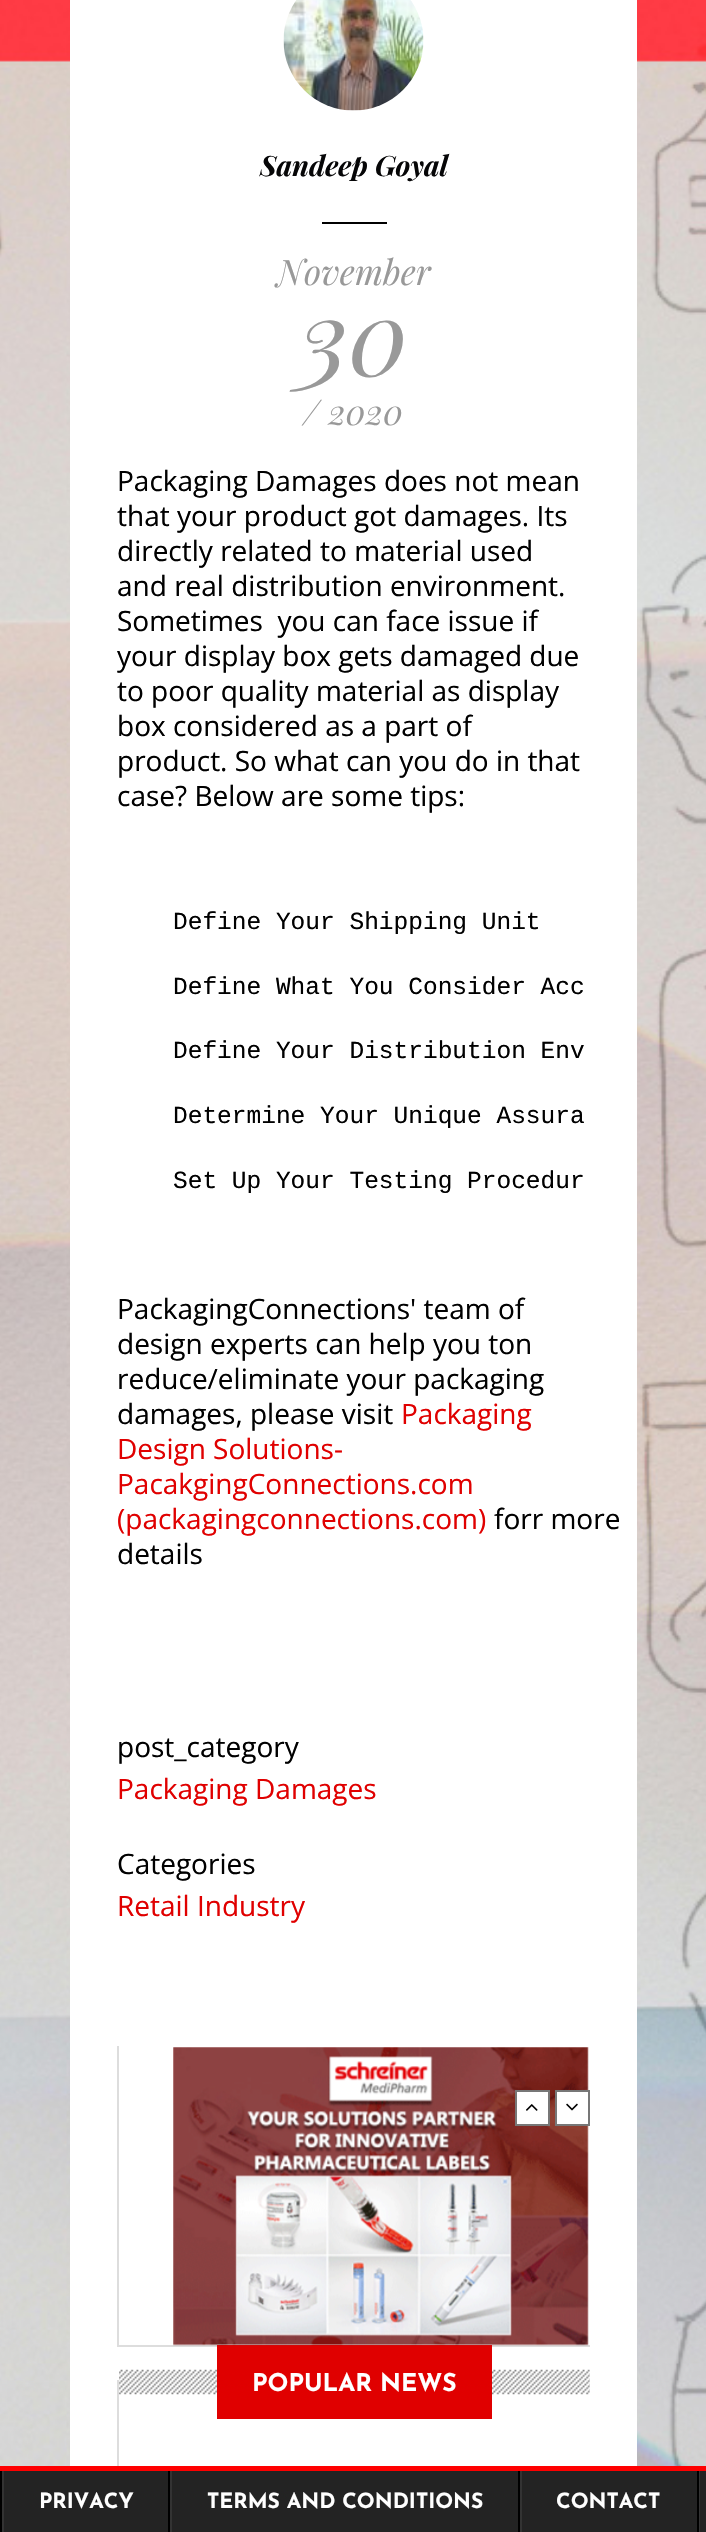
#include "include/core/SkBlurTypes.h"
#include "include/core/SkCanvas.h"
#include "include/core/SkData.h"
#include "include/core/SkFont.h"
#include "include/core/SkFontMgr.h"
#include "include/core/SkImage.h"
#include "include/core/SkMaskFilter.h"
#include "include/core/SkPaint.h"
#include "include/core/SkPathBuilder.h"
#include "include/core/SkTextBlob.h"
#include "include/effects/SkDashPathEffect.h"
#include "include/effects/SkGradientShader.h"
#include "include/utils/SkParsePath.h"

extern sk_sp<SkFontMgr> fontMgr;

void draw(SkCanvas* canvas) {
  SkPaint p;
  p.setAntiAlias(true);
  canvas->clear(SK_ColorWHITE);
  canvas->drawImageRect(SkImages::DeferredFromEncodedData(SkData::MakeFromFileName("images/1.png")), SkRect::MakeLTRB(0, 0, 706, 2466), SkSamplingOptions());
  p.setColor(SK_ColorWHITE);
  canvas->drawRect(SkRect::MakeLTRB(70, 0, 637, 2466), p);
  canvas->drawImageRect(SkImages::DeferredFromEncodedData(SkData::MakeFromFileName("images/2.png")), SkRect::MakeLTRB(283, 0, 424, 111), SkSamplingOptions());
  p.setColor(SK_ColorBLACK);
  canvas->drawRect(SkRect::MakeLTRB(322, 222, 387, 224), p);
  p.setColor(SkColorSetRGB(221, 221, 221));
  canvas->drawRect(SkRect::MakeLTRB(117, 2345, 590, 2347), p);
  canvas->drawRect(SkRect::MakeLTRB(117, 2046, 119, 2347), p);
  canvas->drawImageRect(SkImages::DeferredFromEncodedData(SkData::MakeFromFileName("images/6.png")), SkRect::MakeLTRB(119, 2369, 590, 2395), SkSamplingOptions());
  p.setColor(SkColorSetRGB(224, 0, 0));
  canvas->drawRect(SkRect::MakeLTRB(217, 2345, 492, 2419), p);
  canvas->drawImageRect(SkImages::DeferredFromEncodedData(SkData::MakeFromFileName("images/3.png")), SkRect::MakeLTRB(173, 2047, 589, 2346), SkSamplingOptions());
  p.setColor(SK_ColorWHITE);
  canvas->drawRect(SkRect::MakeLTRB(516, 2091, 549, 2125), p);
  p.setStyle(SkPaint::kStroke_Style);
  p.setStrokeWidth(2);
  p.setColor(SkColorSetRGB(119, 119, 119));
  canvas->drawRect(SkRect::MakeLTRB(516, 2091, 549, 2125), p);
  canvas->drawImageRect(SkImages::DeferredFromEncodedData(SkData::MakeFromFileName("images/4.png")), SkRect::MakeLTRB(526, 2104, 538, 2111), SkSamplingOptions());
  p.setStyle(SkPaint::kFill_Style);
  p.setColor(SK_ColorWHITE);
  canvas->drawRect(SkRect::MakeLTRB(556, 2091, 589, 2125), p);
  p.setStyle(SkPaint::kStroke_Style);
  p.setColor(SkColorSetRGB(119, 119, 119));
  canvas->drawRect(SkRect::MakeLTRB(556, 2091, 589, 2125), p);
  canvas->drawImageRect(SkImages::DeferredFromEncodedData(SkData::MakeFromFileName("images/5.png")), SkRect::MakeLTRB(566, 2103, 578, 2111), SkSamplingOptions());
  p.setStyle(SkPaint::kFill_Style);
  p.setColor(SkColorSetRGB(221, 221, 221));
  canvas->drawRect(SkRect::MakeLTRB(117, 2380, 119, 2466), p);
  p.setColor(SkColorSetRGB(35, 35, 35));
  canvas->drawRect(SkRect::MakeLTRB(4, 2471, 706, 2532), p);
  p.setColor(SkColorSetRGB(255, 0, 0));
  canvas->drawRect(SkRect::MakeLTRB(0, 2466, 706, 2471), p);
  p.setColor(SkColorSetRGB(51, 51, 51));
  canvas->drawRect(SkRect::MakeLTRB(699, 2471, 700, 2532), p);
  p.setColor(SK_ColorBLACK);
  canvas->drawRect(SkRect::MakeLTRB(0, 2471, 2, 2532), p);
  canvas->drawRect(SkRect::MakeLTRB(168, 2471, 170, 2532), p);
  p.setColor(SkColorSetRGB(51, 51, 51));
  canvas->drawRect(SkRect::MakeLTRB(2, 2471, 4, 2532), p);
  p.setColor(SK_ColorBLACK);
  canvas->drawRect(SkRect::MakeLTRB(518, 2471, 520, 2532), p);
  p.setColor(SkColorSetRGB(51, 51, 51));
  canvas->drawRect(SkRect::MakeLTRB(170, 2471, 172, 2532), p);
  p.setColor(SK_ColorBLACK);
  canvas->drawRect(SkRect::MakeLTRB(697, 2471, 699, 2532), p);
  p.setColor(SkColorSetRGB(51, 51, 51));
  canvas->drawRect(SkRect::MakeLTRB(520, 2471, 522, 2532), p);
  SkFont font1(fontMgr->matchFamilyStyle("Playfair Display", SkFontStyle::BoldItalic()), 28);
  font1.setSubpixel(true);
  p.setColor(SkColorSetRGB(6, 6, 7));
  canvas->drawString("Sandeep Goyal", 260, 176, font1, p);
  SkFont font2(fontMgr->matchFamilyStyle("Playfair Display", SkFontStyle::Italic()), 35);
  font2.setSubpixel(true);
  p.setColor(SkColorSetRGB(153, 153, 153));
  canvas->drawString("November", 277, 285, font2, p);
  SkFont font3(fontMgr->matchFamilyStyle("Playfair Display", SkFontStyle::Italic()), 105);
  font3.setSubpixel(true);
  canvas->drawString("30", 298, 376, font3, p);
  canvas->drawString("/ 2020", 303, 425, font2, p);
  SkFont font4(fontMgr->matchFamilyStyle("Open Sans", SkFontStyle::Normal()), 28);
  font4.setSubpixel(true);
  p.setColor(SK_ColorBLACK);
  canvas->drawString("Packaging Damages does not mean", 117, 491, font4, p);
  canvas->drawString("that your product got damages. Its", 117, 526, font4, p);
  canvas->drawString("directly related to material used", 117, 561, font4, p);
  canvas->drawString("and real distribution environment.", 117, 596, font4, p);
  canvas->drawString("Sometimes  you can face issue if", 117, 631, font4, p);
  canvas->drawString("your display box gets damaged due", 117, 666, font4, p);
  canvas->drawString("to poor quality material as display", 117, 701, font4, p);
  canvas->drawString("box considered as a part of", 117, 736, font4, p);
  canvas->drawString("product. So what can you do in that", 117, 771, font4, p);
  canvas->drawString("case? Below are some tips:", 117, 806, font4, p);
  SkFont font5(fontMgr->matchFamilyStyle("Liberation Mono", SkFontStyle::Normal()), 24.5f);
  font5.setSubpixel(true);
  canvas->drawString("Define Your Shipping Unit", 173, 929, font5, p);
  canvas->drawString("Define What You Consider Acc", 173, 994, font5, p);
  canvas->drawString("Define Your Distribution Env", 173, 1058, font5, p);
  canvas->drawString("Determine Your Unique Assura", 173, 1123, font5, p);
  canvas->drawString("Set Up Your Testing Procedur", 173, 1188, font5, p);
  canvas->drawString("PackagingConnections' team of", 117, 1319, font4, p);
  canvas->drawString("design experts can help you ton", 117, 1354, font4, p);
  canvas->drawString("reduce/eliminate your packaging", 117, 1389, font4, p);
  canvas->drawString("damages, please visit", 117, 1424, font4, p);
  p.setColor(SkColorSetRGB(224, 0, 0));
  canvas->drawString("Packaging", 401, 1424, font4, p);
  canvas->drawString("Design Solutions-", 117, 1459, font4, p);
  canvas->drawString("PacakgingConnections.com", 117, 1494, font4, p);
  canvas->drawString("(packagingconnections.com)", 117, 1529, font4, p);
  p.setColor(SK_ColorBLACK);
  canvas->drawString("forr more", 494, 1529, font4, p);
  canvas->drawString("details", 117, 1564, font4, p);
  canvas->drawString("post_category", 117, 1757, font4, p);
  p.setColor(SkColorSetRGB(224, 0, 0));
  canvas->drawString("Packaging Damages", 117, 1799, font4, p);
  p.setColor(SK_ColorBLACK);
  canvas->drawString("Categories", 117, 1874, font4, p);
  p.setColor(SkColorSetRGB(224, 0, 0));
  canvas->drawString("Retail Industry", 117, 1916, font4, p);
  SkFont font6(fontMgr->matchFamilyStyle("Josefin Sans", SkFontStyle::Bold()), 24.5f);
  font6.setSubpixel(true);
  p.setColor(SK_ColorWHITE);
  canvas->drawString("POPULAR NEWS", 252, 2391, font6, p);
  SkFont font7(fontMgr->matchFamilyStyle("Josefin Sans", SkFontStyle::Bold()), 21);
  font7.setSubpixel(true);
  canvas->drawString("PRIVACY", 39, 2508, font7, p);
  canvas->drawString("TERMS AND CONDITIONS", 207, 2508, font7, p);
  canvas->drawString("CONTACT", 556, 2508, font7, p);
}
